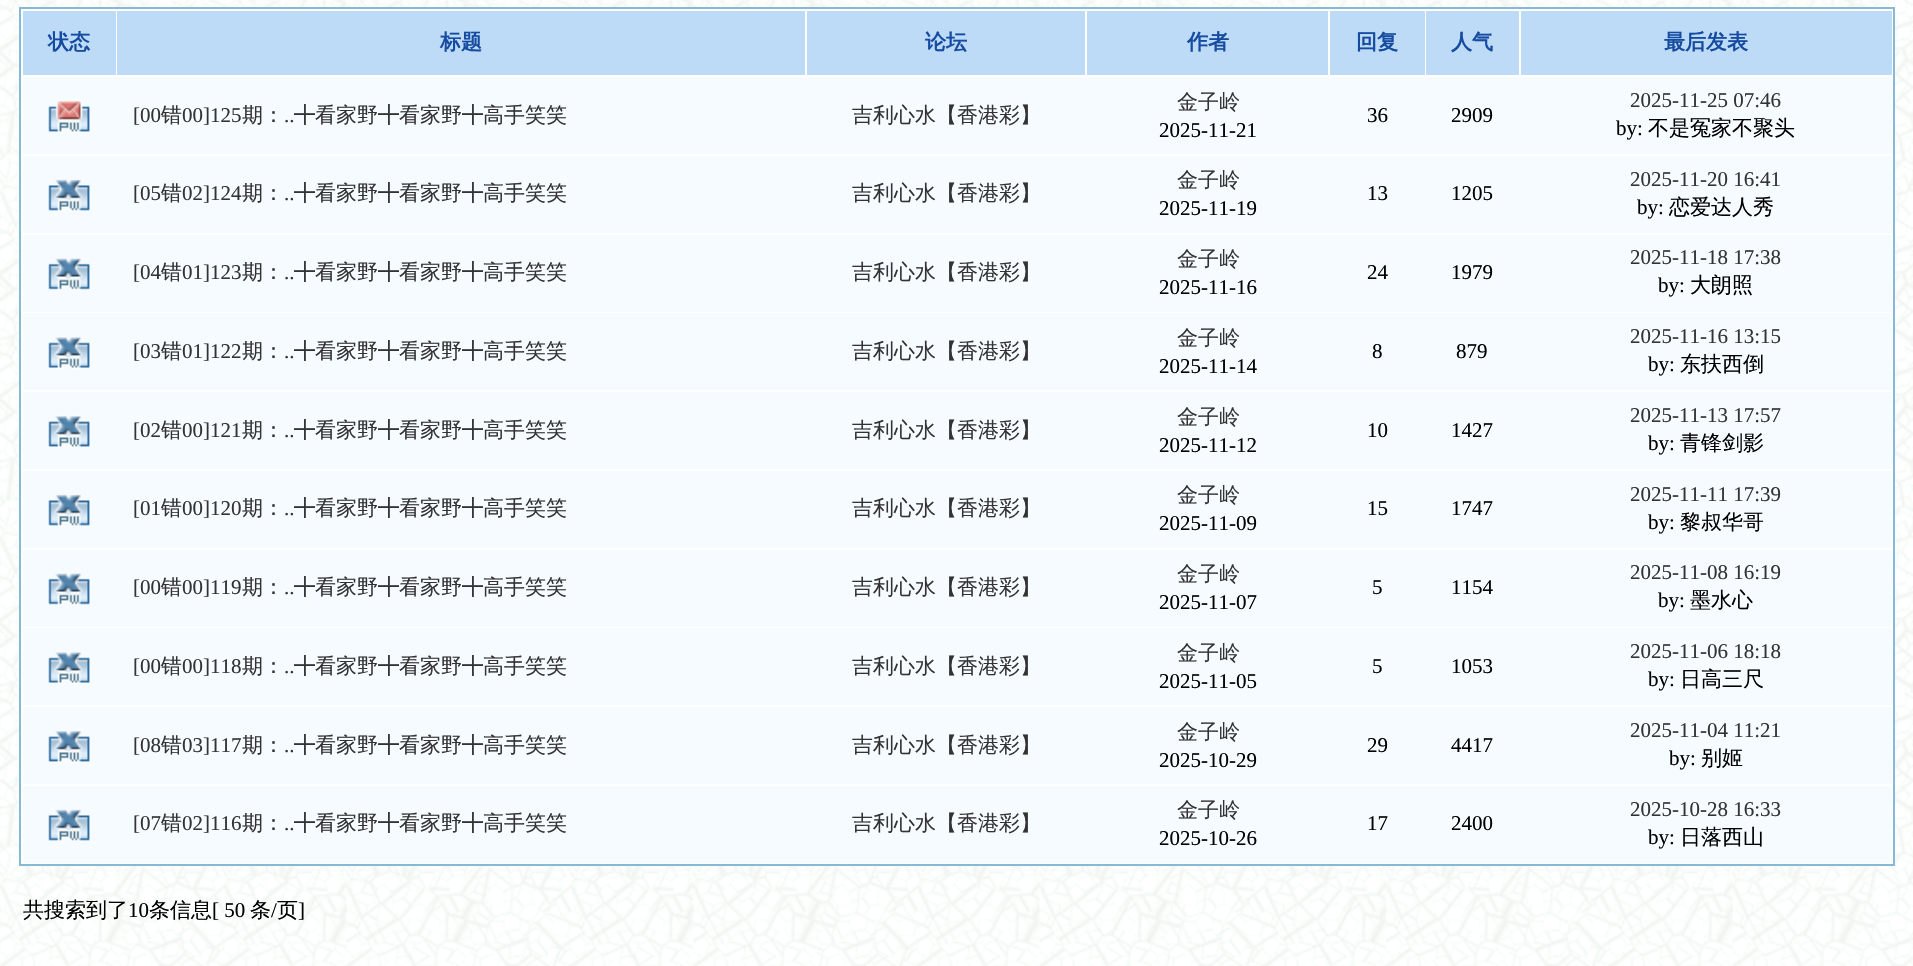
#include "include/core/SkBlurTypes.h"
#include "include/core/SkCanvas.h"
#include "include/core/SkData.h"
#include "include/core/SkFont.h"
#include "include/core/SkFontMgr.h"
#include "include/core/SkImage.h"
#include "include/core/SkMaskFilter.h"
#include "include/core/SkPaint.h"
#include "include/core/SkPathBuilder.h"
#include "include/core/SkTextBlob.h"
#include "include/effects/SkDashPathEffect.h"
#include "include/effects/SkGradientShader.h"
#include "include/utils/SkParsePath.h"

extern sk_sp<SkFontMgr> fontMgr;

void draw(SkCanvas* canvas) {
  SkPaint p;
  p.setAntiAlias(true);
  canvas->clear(SK_ColorWHITE);
  canvas->drawImageRect(SkImages::DeferredFromEncodedData(SkData::MakeFromFileName("images/1.png")), SkRect::MakeLTRB(0, 0, 1913, 966), SkSamplingOptions());
  p.setColor(SK_ColorWHITE);
  canvas->drawRect(SkRect::MakeLTRB(20, 8, 1894, 865), p);
  p.setStyle(SkPaint::kStroke_Style);
  p.setStrokeWidth(2);
  p.setColor(SkColorSetRGB(134, 185, 214));
  canvas->drawRect(SkRect::MakeLTRB(20, 8, 1894, 865), p);
  p.setStyle(SkPaint::kFill_Style);
  p.setColor(SkColorSetRGB(189, 219, 247));
  canvas->drawRect(SkRect::MakeLTRB(23, 11, 116, 75), p);
  canvas->drawRect(SkRect::MakeLTRB(117, 11, 805, 75), p);
  canvas->drawRect(SkRect::MakeLTRB(807, 11, 1085, 75), p);
  canvas->drawRect(SkRect::MakeLTRB(1087, 11, 1328, 75), p);
  canvas->drawRect(SkRect::MakeLTRB(1330, 11, 1425, 75), p);
  canvas->drawRect(SkRect::MakeLTRB(1426, 11, 1519, 75), p);
  canvas->drawRect(SkRect::MakeLTRB(1521, 11, 1892, 75), p);
  p.setColor(SkColorSetRGB(245, 251, 255));
  canvas->drawRect(SkRect::MakeLTRB(23, 77, 1892, 154), p);
  canvas->drawImageRect(SkImages::DeferredFromEncodedData(SkData::MakeFromFileName("images/2.png")), SkRect::MakeLTRB(48, 100, 90, 133), SkSamplingOptions());
  canvas->drawRect(SkRect::MakeLTRB(23, 156, 1892, 233), p);
  canvas->drawImageRect(SkImages::DeferredFromEncodedData(SkData::MakeFromFileName("images/3.png")), SkRect::MakeLTRB(48, 179, 90, 212), SkSamplingOptions());
  canvas->drawRect(SkRect::MakeLTRB(23, 235, 1892, 312), p);
  canvas->drawImageRect(SkImages::DeferredFromEncodedData(SkData::MakeFromFileName("images/4.png")), SkRect::MakeLTRB(48, 258, 90, 291), SkSamplingOptions());
  canvas->drawRect(SkRect::MakeLTRB(23, 313, 1892, 390), p);
  canvas->drawImageRect(SkImages::DeferredFromEncodedData(SkData::MakeFromFileName("images/5.png")), SkRect::MakeLTRB(48, 336, 90, 369), SkSamplingOptions());
  canvas->drawRect(SkRect::MakeLTRB(23, 392, 1892, 469), p);
  canvas->drawImageRect(SkImages::DeferredFromEncodedData(SkData::MakeFromFileName("images/6.png")), SkRect::MakeLTRB(48, 415, 90, 448), SkSamplingOptions());
  canvas->drawRect(SkRect::MakeLTRB(23, 471, 1892, 548), p);
  canvas->drawImageRect(SkImages::DeferredFromEncodedData(SkData::MakeFromFileName("images/3.png")), SkRect::MakeLTRB(48, 494, 90, 527), SkSamplingOptions());
  canvas->drawRect(SkRect::MakeLTRB(23, 550, 1892, 627), p);
  canvas->drawImageRect(SkImages::DeferredFromEncodedData(SkData::MakeFromFileName("images/4.png")), SkRect::MakeLTRB(48, 573, 90, 606), SkSamplingOptions());
  canvas->drawRect(SkRect::MakeLTRB(23, 628, 1892, 705), p);
  canvas->drawImageRect(SkImages::DeferredFromEncodedData(SkData::MakeFromFileName("images/5.png")), SkRect::MakeLTRB(48, 651, 90, 684), SkSamplingOptions());
  canvas->drawRect(SkRect::MakeLTRB(23, 707, 1892, 784), p);
  canvas->drawImageRect(SkImages::DeferredFromEncodedData(SkData::MakeFromFileName("images/6.png")), SkRect::MakeLTRB(48, 730, 90, 763), SkSamplingOptions());
  canvas->drawRect(SkRect::MakeLTRB(23, 786, 1892, 863), p);
  canvas->drawImageRect(SkImages::DeferredFromEncodedData(SkData::MakeFromFileName("images/3.png")), SkRect::MakeLTRB(48, 809, 90, 842), SkSamplingOptions());
  SkFont font1(fontMgr->matchFamilyStyle("WenQuanYi Zen Hei", SkFontStyle::Bold()), 21);
  font1.setSubpixel(true);
  p.setColor(SkColorSetRGB(21, 75, 160));
  canvas->drawString("状态", 48, 49, font1, p);
  canvas->drawString("标题", 440, 49, font1, p);
  canvas->drawString("论坛", 925, 49, font1, p);
  canvas->drawString("作者", 1187, 49, font1, p);
  canvas->drawString("回复", 1356, 49, font1, p);
  canvas->drawString("人气", 1451, 49, font1, p);
  canvas->drawString("最后发表", 1664, 49, font1, p);
  SkFont font2(fontMgr->matchFamilyStyle("Liberation Serif", SkFontStyle::Normal()), 21);
  font2.setSubpixel(true);
  p.setColor(SkColorSetRGB(51, 51, 51));
  canvas->drawString("[00", 133, 122, font2, p);
  SkFont font3(fontMgr->matchFamilyStyle("WenQuanYi Zen Hei", SkFontStyle(500, SkFontStyle::kNormal_Width, SkFontStyle::kUpright_Slant)), 21);
  font3.setSubpixel(true);
  canvas->drawString("错", 161, 122, font3, p);
  canvas->drawString("00]125", 182, 122, font2, p);
  canvas->drawString("期：", 242, 122, font3, p);
  canvas->drawString("..", 284, 122, font2, p);
  canvas->drawString("╋看家野╋看家野╋高手笑笑", 294, 122, font3, p);
  canvas->drawString("吉利心水【香港彩】", 852, 122, font3, p);
  canvas->drawString("金子岭", 1177, 109, font3, p);
  p.setColor(SK_ColorBLACK);
  canvas->drawString("2025-11-21", 1159, 137, font2, p);
  canvas->drawString("36", 1367, 122, font2, p);
  canvas->drawString("2909", 1451, 122, font2, p);
  p.setColor(SkColorSetRGB(51, 51, 51));
  canvas->drawString("2025-11-25 07:46", 1630, 107, font2, p);
  p.setColor(SK_ColorBLACK);
  canvas->drawString("by:", 1616, 135, font2, p);
  canvas->drawString("不是冤家不聚头", 1648, 135, font3, p);
  p.setColor(SkColorSetRGB(51, 51, 51));
  canvas->drawString("[05", 133, 200, font2, p);
  canvas->drawString("错", 161, 200, font3, p);
  canvas->drawString("02]124", 182, 200, font2, p);
  canvas->drawString("期：", 242, 200, font3, p);
  canvas->drawString("..", 284, 200, font2, p);
  canvas->drawString("╋看家野╋看家野╋高手笑笑", 294, 200, font3, p);
  canvas->drawString("吉利心水【香港彩】", 852, 200, font3, p);
  canvas->drawString("金子岭", 1177, 187, font3, p);
  p.setColor(SK_ColorBLACK);
  canvas->drawString("2025-11-19", 1159, 215, font2, p);
  canvas->drawString("13", 1367, 200, font2, p);
  canvas->drawString("1205", 1451, 200, font2, p);
  p.setColor(SkColorSetRGB(51, 51, 51));
  canvas->drawString("2025-11-20 16:41", 1630, 186, font2, p);
  p.setColor(SK_ColorBLACK);
  canvas->drawString("by:", 1637, 214, font2, p);
  canvas->drawString("恋爱达人秀", 1669, 214, font3, p);
  p.setColor(SkColorSetRGB(51, 51, 51));
  canvas->drawString("[04", 133, 279, font2, p);
  canvas->drawString("错", 161, 279, font3, p);
  canvas->drawString("01]123", 182, 279, font2, p);
  canvas->drawString("期：", 242, 279, font3, p);
  canvas->drawString("..", 284, 279, font2, p);
  canvas->drawString("╋看家野╋看家野╋高手笑笑", 294, 279, font3, p);
  canvas->drawString("吉利心水【香港彩】", 852, 279, font3, p);
  canvas->drawString("金子岭", 1177, 266, font3, p);
  p.setColor(SK_ColorBLACK);
  canvas->drawString("2025-11-16", 1159, 294, font2, p);
  canvas->drawString("24", 1367, 279, font2, p);
  canvas->drawString("1979", 1451, 279, font2, p);
  p.setColor(SkColorSetRGB(51, 51, 51));
  canvas->drawString("2025-11-18 17:38", 1630, 264, font2, p);
  p.setColor(SK_ColorBLACK);
  canvas->drawString("by:", 1658, 292, font2, p);
  canvas->drawString("大朗照", 1690, 292, font3, p);
  p.setColor(SkColorSetRGB(51, 51, 51));
  canvas->drawString("[03", 133, 358, font2, p);
  canvas->drawString("错", 161, 358, font3, p);
  canvas->drawString("01]122", 182, 358, font2, p);
  canvas->drawString("期：", 242, 358, font3, p);
  canvas->drawString("..", 284, 358, font2, p);
  canvas->drawString("╋看家野╋看家野╋高手笑笑", 294, 358, font3, p);
  canvas->drawString("吉利心水【香港彩】", 852, 358, font3, p);
  canvas->drawString("金子岭", 1177, 345, font3, p);
  p.setColor(SK_ColorBLACK);
  canvas->drawString("2025-11-14", 1159, 373, font2, p);
  canvas->drawString("8", 1372, 358, font2, p);
  canvas->drawString("879", 1456, 358, font2, p);
  p.setColor(SkColorSetRGB(51, 51, 51));
  canvas->drawString("2025-11-16 13:15", 1630, 343, font2, p);
  p.setColor(SK_ColorBLACK);
  canvas->drawString("by:", 1648, 371, font2, p);
  canvas->drawString("东扶西倒", 1680, 371, font3, p);
  p.setColor(SkColorSetRGB(51, 51, 51));
  canvas->drawString("[02", 133, 437, font2, p);
  canvas->drawString("错", 161, 437, font3, p);
  canvas->drawString("00]121", 182, 437, font2, p);
  canvas->drawString("期：", 242, 437, font3, p);
  canvas->drawString("..", 284, 437, font2, p);
  canvas->drawString("╋看家野╋看家野╋高手笑笑", 294, 437, font3, p);
  canvas->drawString("吉利心水【香港彩】", 852, 437, font3, p);
  canvas->drawString("金子岭", 1177, 424, font3, p);
  p.setColor(SK_ColorBLACK);
  canvas->drawString("2025-11-12", 1159, 452, font2, p);
  canvas->drawString("10", 1367, 437, font2, p);
  canvas->drawString("1427", 1451, 437, font2, p);
  p.setColor(SkColorSetRGB(51, 51, 51));
  canvas->drawString("2025-11-13 17:57", 1630, 422, font2, p);
  p.setColor(SK_ColorBLACK);
  canvas->drawString("by:", 1648, 450, font2, p);
  canvas->drawString("青锋剑影", 1680, 450, font3, p);
  p.setColor(SkColorSetRGB(51, 51, 51));
  canvas->drawString("[01", 133, 515, font2, p);
  canvas->drawString("错", 161, 515, font3, p);
  canvas->drawString("00]120", 182, 515, font2, p);
  canvas->drawString("期：", 242, 515, font3, p);
  canvas->drawString("..", 284, 515, font2, p);
  canvas->drawString("╋看家野╋看家野╋高手笑笑", 294, 515, font3, p);
  canvas->drawString("吉利心水【香港彩】", 852, 515, font3, p);
  canvas->drawString("金子岭", 1177, 502, font3, p);
  p.setColor(SK_ColorBLACK);
  canvas->drawString("2025-11-09", 1159, 530, font2, p);
  canvas->drawString("15", 1367, 515, font2, p);
  canvas->drawString("1747", 1451, 515, font2, p);
  p.setColor(SkColorSetRGB(51, 51, 51));
  canvas->drawString("2025-11-11 17:39", 1630, 501, font2, p);
  p.setColor(SK_ColorBLACK);
  canvas->drawString("by:", 1648, 529, font2, p);
  canvas->drawString("黎叔华哥", 1680, 529, font3, p);
  p.setColor(SkColorSetRGB(51, 51, 51));
  canvas->drawString("[00", 133, 594, font2, p);
  canvas->drawString("错", 161, 594, font3, p);
  canvas->drawString("00]119", 182, 594, font2, p);
  canvas->drawString("期：", 242, 594, font3, p);
  canvas->drawString("..", 284, 594, font2, p);
  canvas->drawString("╋看家野╋看家野╋高手笑笑", 294, 594, font3, p);
  canvas->drawString("吉利心水【香港彩】", 852, 594, font3, p);
  canvas->drawString("金子岭", 1177, 581, font3, p);
  p.setColor(SK_ColorBLACK);
  canvas->drawString("2025-11-07", 1159, 609, font2, p);
  canvas->drawString("5", 1372, 594, font2, p);
  canvas->drawString("1154", 1451, 594, font2, p);
  p.setColor(SkColorSetRGB(51, 51, 51));
  canvas->drawString("2025-11-08 16:19", 1630, 579, font2, p);
  p.setColor(SK_ColorBLACK);
  canvas->drawString("by:", 1658, 607, font2, p);
  canvas->drawString("墨水心", 1690, 607, font3, p);
  p.setColor(SkColorSetRGB(51, 51, 51));
  canvas->drawString("[00", 133, 673, font2, p);
  canvas->drawString("错", 161, 673, font3, p);
  canvas->drawString("00]118", 182, 673, font2, p);
  canvas->drawString("期：", 242, 673, font3, p);
  canvas->drawString("..", 284, 673, font2, p);
  canvas->drawString("╋看家野╋看家野╋高手笑笑", 294, 673, font3, p);
  canvas->drawString("吉利心水【香港彩】", 852, 673, font3, p);
  canvas->drawString("金子岭", 1177, 660, font3, p);
  p.setColor(SK_ColorBLACK);
  canvas->drawString("2025-11-05", 1159, 688, font2, p);
  canvas->drawString("5", 1372, 673, font2, p);
  canvas->drawString("1053", 1451, 673, font2, p);
  p.setColor(SkColorSetRGB(51, 51, 51));
  canvas->drawString("2025-11-06 18:18", 1630, 658, font2, p);
  p.setColor(SK_ColorBLACK);
  canvas->drawString("by:", 1648, 686, font2, p);
  canvas->drawString("日高三尺", 1680, 686, font3, p);
  p.setColor(SkColorSetRGB(51, 51, 51));
  canvas->drawString("[08", 133, 752, font2, p);
  canvas->drawString("错", 161, 752, font3, p);
  canvas->drawString("03]117", 182, 752, font2, p);
  canvas->drawString("期：", 242, 752, font3, p);
  canvas->drawString("..", 284, 752, font2, p);
  canvas->drawString("╋看家野╋看家野╋高手笑笑", 294, 752, font3, p);
  canvas->drawString("吉利心水【香港彩】", 852, 752, font3, p);
  canvas->drawString("金子岭", 1177, 739, font3, p);
  p.setColor(SK_ColorBLACK);
  canvas->drawString("2025-10-29", 1159, 767, font2, p);
  canvas->drawString("29", 1367, 752, font2, p);
  canvas->drawString("4417", 1451, 752, font2, p);
  p.setColor(SkColorSetRGB(51, 51, 51));
  canvas->drawString("2025-11-04 11:21", 1630, 737, font2, p);
  p.setColor(SK_ColorBLACK);
  canvas->drawString("by:", 1669, 765, font2, p);
  canvas->drawString("别姬", 1701, 765, font3, p);
  p.setColor(SkColorSetRGB(51, 51, 51));
  canvas->drawString("[07", 133, 830, font2, p);
  canvas->drawString("错", 161, 830, font3, p);
  canvas->drawString("02]116", 182, 830, font2, p);
  canvas->drawString("期：", 242, 830, font3, p);
  canvas->drawString("..", 284, 830, font2, p);
  canvas->drawString("╋看家野╋看家野╋高手笑笑", 294, 830, font3, p);
  canvas->drawString("吉利心水【香港彩】", 852, 830, font3, p);
  canvas->drawString("金子岭", 1177, 817, font3, p);
  p.setColor(SK_ColorBLACK);
  canvas->drawString("2025-10-26", 1159, 845, font2, p);
  canvas->drawString("17", 1367, 830, font2, p);
  canvas->drawString("2400", 1451, 830, font2, p);
  p.setColor(SkColorSetRGB(51, 51, 51));
  canvas->drawString("2025-10-28 16:33", 1630, 816, font2, p);
  p.setColor(SK_ColorBLACK);
  canvas->drawString("by:", 1648, 844, font2, p);
  canvas->drawString("日落西山", 1680, 844, font3, p);
  canvas->drawString("共搜索到了", 23, 917, font3, p);
  canvas->drawString("10", 128, 917, font2, p);
  canvas->drawString("条信息", 149, 917, font3, p);
  canvas->drawString("[ 50", 212, 917, font2, p);
  canvas->drawString("条", 250, 917, font3, p);
  canvas->drawString("/", 271, 917, font2, p);
  canvas->drawString("页", 277, 917, font3, p);
  canvas->drawString("]", 298, 917, font2, p);
}
